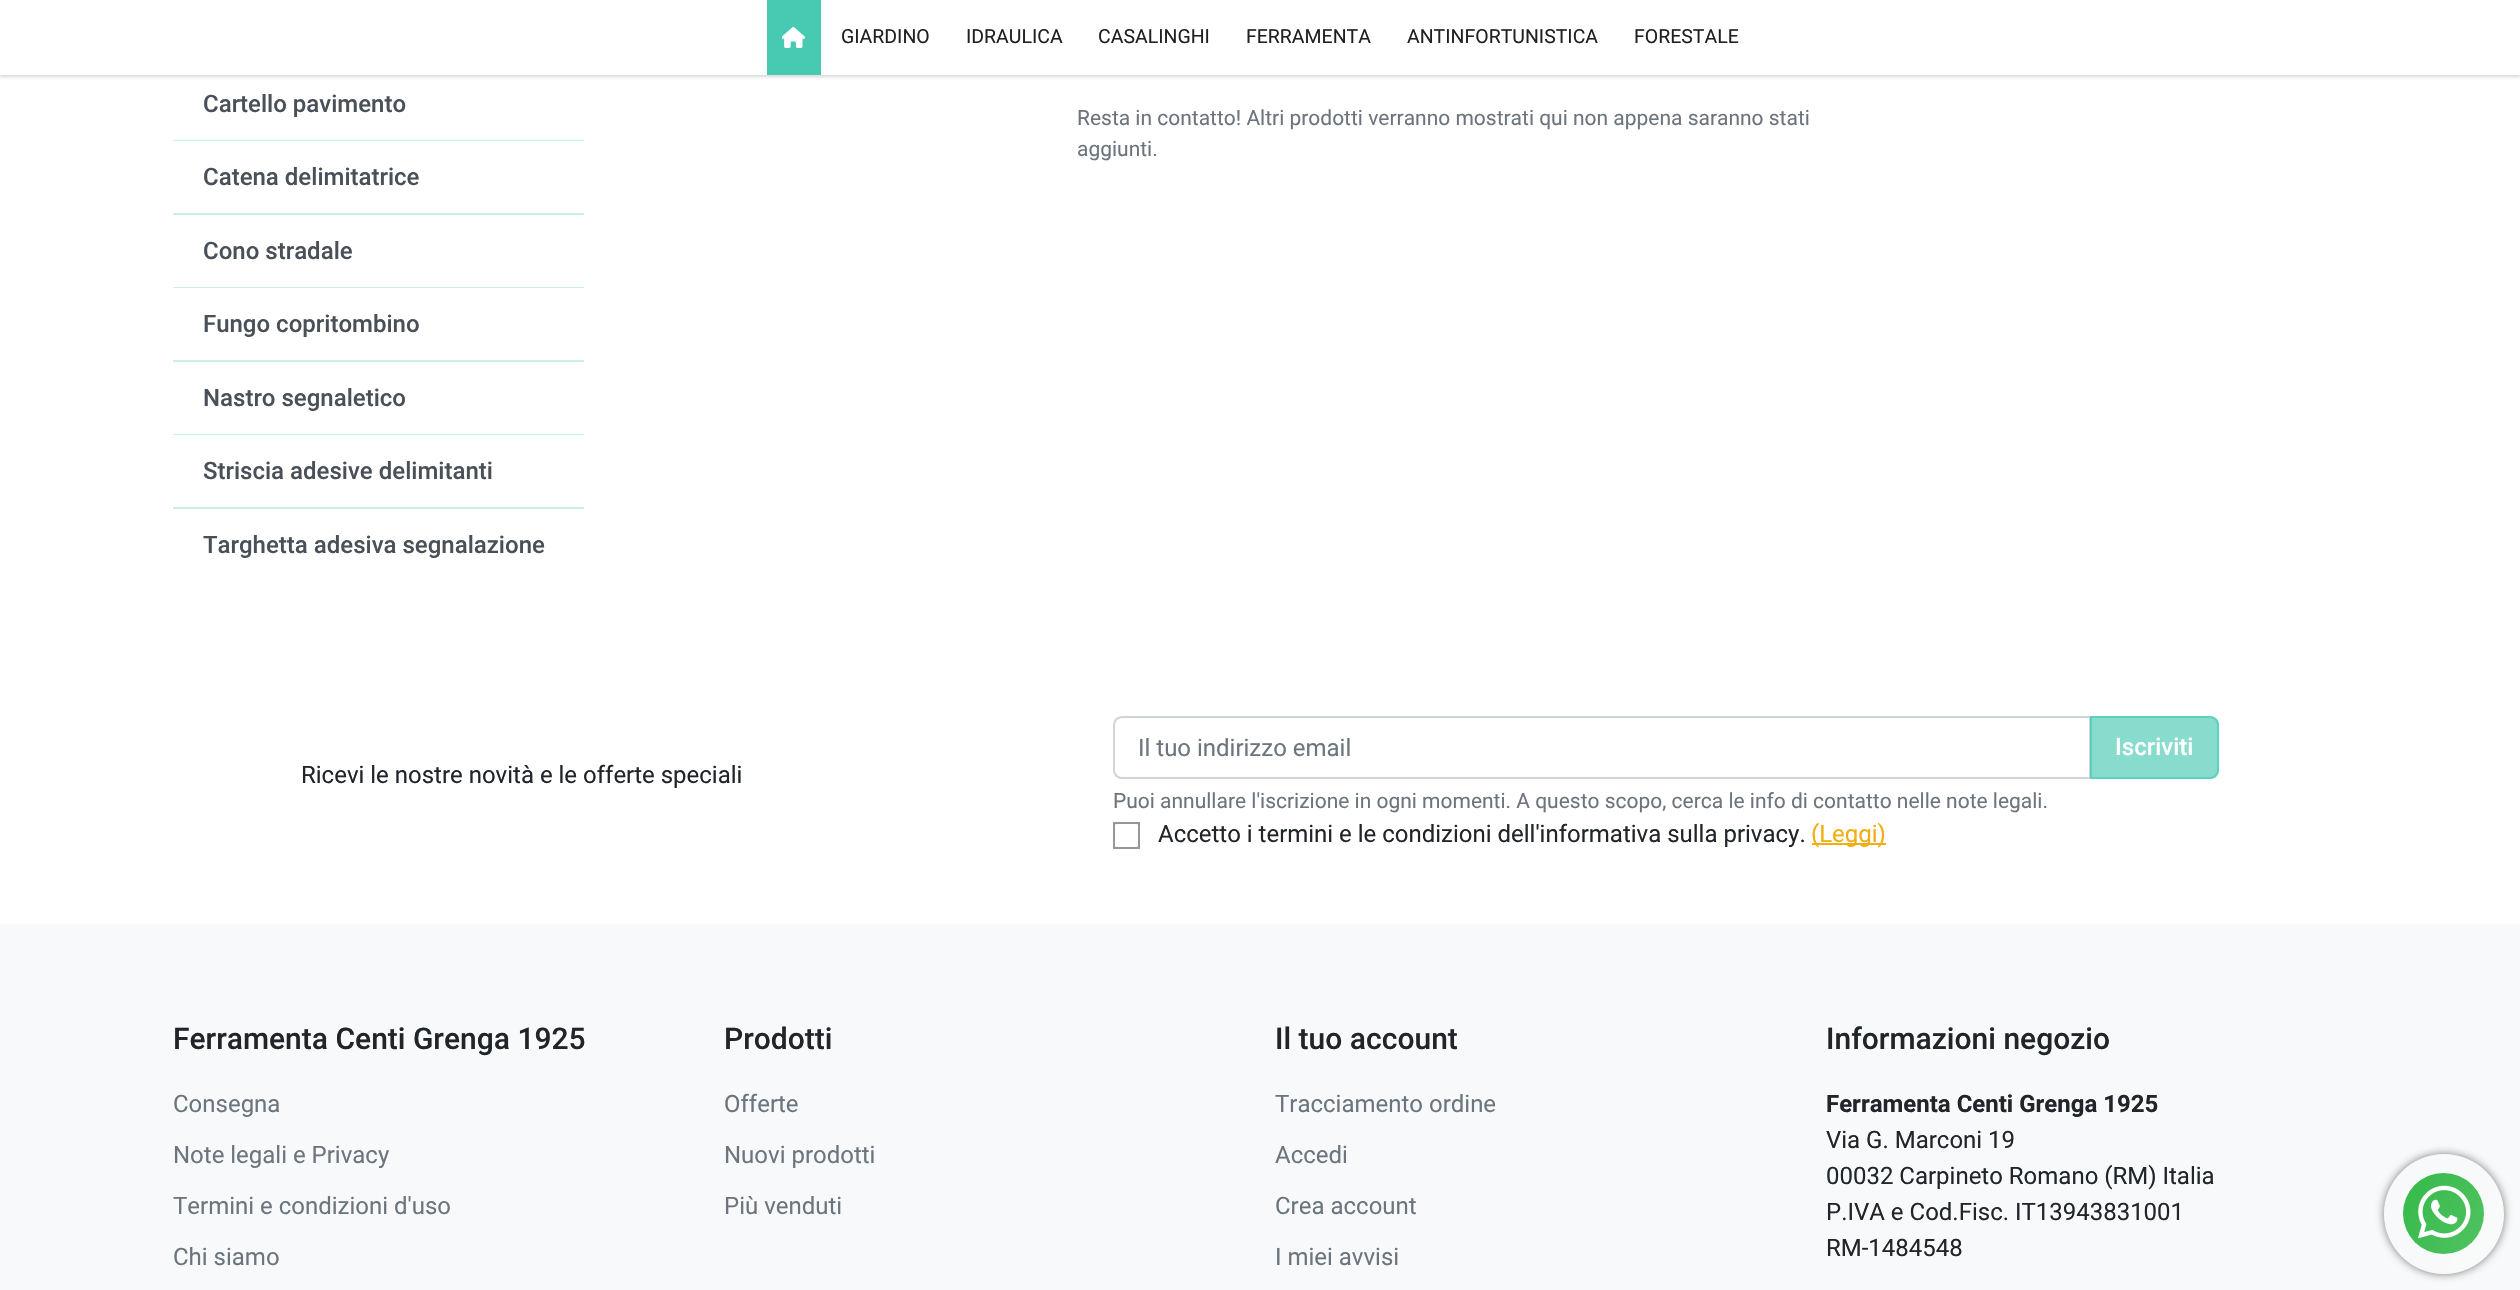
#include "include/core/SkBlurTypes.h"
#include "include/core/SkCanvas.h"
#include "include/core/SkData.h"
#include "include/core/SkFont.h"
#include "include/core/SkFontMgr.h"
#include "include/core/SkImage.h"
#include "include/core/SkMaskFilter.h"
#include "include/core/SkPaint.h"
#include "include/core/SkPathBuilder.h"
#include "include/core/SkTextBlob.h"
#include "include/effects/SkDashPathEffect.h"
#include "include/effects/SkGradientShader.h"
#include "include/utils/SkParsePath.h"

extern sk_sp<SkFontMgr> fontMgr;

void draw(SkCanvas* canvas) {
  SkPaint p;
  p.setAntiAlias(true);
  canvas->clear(SK_ColorWHITE);
  p.setColor(SkColorSetARGB(38, 0, 0, 0));
  p.setMaskFilter(SkMaskFilter::MakeBlur(kNormal_SkBlurStyle, 1.5f));
  canvas->drawRect(SkRect::MakeLTRB(0, 2, 2520, 77), p);
  p.setMaskFilter(nullptr);
  p.setColor(SK_ColorWHITE);
  canvas->drawRect(SkRect::MakeLTRB(0, 0, 2520, 75), p);
  p.setColor(SkColorSetRGB(72, 202, 178));
  canvas->drawRect(SkRect::MakeLTRB(767, 0, 821, 75), p);
  canvas->drawImageRect(SkImages::DeferredFromEncodedData(SkData::MakeFromFileName("images/1.png")), SkRect::MakeLTRB(782, 27, 806, 48), SkSamplingOptions());
  p.setColor(SkColorSetRGB(200, 239, 232));
  canvas->drawRect(SkRect::MakeLTRB(173, 140, 584, 141), p);
  canvas->drawRect(SkRect::MakeLTRB(173, 213, 584, 215), p);
  canvas->drawRect(SkRect::MakeLTRB(173, 287, 584, 288), p);
  canvas->drawRect(SkRect::MakeLTRB(173, 360, 584, 362), p);
  canvas->drawRect(SkRect::MakeLTRB(173, 434, 584, 435), p);
  canvas->drawRect(SkRect::MakeLTRB(173, 507, 584, 509), p);
  p.setStyle(SkPaint::kStroke_Style);
  p.setStrokeWidth(2);
  p.setColor(SkColorSetRGB(206, 212, 218));
  canvas->drawPath(SkPathBuilder().moveTo(1122, 717).lineTo(2090, 717).lineTo(2090, 778).lineTo(1122, 778).cubicTo(1117.5f, 778, 1114, 774.5f, 1114, 770).lineTo(1114, 725).cubicTo(1114, 720.5f, 1117.5f, 717, 1122, 717).close().detach(), p);
  p.setStyle(SkPaint::kFill_Style);
  p.setColor(SkColorSetARGB(166, 72, 202, 178));
  canvas->drawPath(SkPathBuilder().moveTo(2090, 716).lineTo(2210, 716).cubicTo(2215, 716, 2219, 720, 2219, 725).lineTo(2219, 770).cubicTo(2219, 775, 2215, 779, 2210, 779).lineTo(2090, 779).close().detach(), p);
  p.setStyle(SkPaint::kStroke_Style);
  canvas->drawPath(SkPathBuilder().moveTo(2091, 717).lineTo(2210, 717).cubicTo(2214.5f, 717, 2218, 720.5f, 2218, 725).lineTo(2218, 770).cubicTo(2218, 774.5f, 2214.5f, 778, 2210, 778).lineTo(2091, 778).close().detach(), p);
  p.setColor(SkColorSetRGB(151, 151, 151));
  canvas->drawRect(SkRect::MakeLTRB(1114, 823, 1139, 848), p);
  canvas->drawRoundRect(SkRect::MakeLTRB(1114, 823, 1139, 848), 2, 2, p);
  p.setStyle(SkPaint::kFill_Style);
  p.setColor(SkColorSetRGB(242, 173, 15));
  canvas->drawRect(SkRect::MakeLTRB(1812, 843, 1886, 845), p);
  p.setColor(SkColorSetRGB(248, 249, 250));
  canvas->drawRect(SkRect::MakeLTRB(0, 924, 2520, 1290), p);
  p.setColor(SkColorSetRGB(45, 183, 66));
  canvas->drawCircle(2443.5f, 1213.5f, 40.5f, p);
  canvas->save();
  canvas->clipPath(SkPathBuilder(SkPathFillType::kEvenOdd).moveTo(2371, 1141).lineTo(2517, 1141).lineTo(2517, 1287).lineTo(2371, 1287).close().moveTo(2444, 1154).cubicTo(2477, 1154, 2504, 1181, 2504, 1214).cubicTo(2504, 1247, 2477, 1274, 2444, 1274).cubicTo(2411, 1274, 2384, 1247, 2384, 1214).cubicTo(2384, 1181, 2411, 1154, 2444, 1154).close().detach(), true);
  p.setColor(SkColorSetARGB(128, 0, 0, 0));
  p.setMaskFilter(SkMaskFilter::MakeBlur(kNormal_SkBlurStyle, 4));
  canvas->drawRoundRect(SkRect::MakeLTRB(2384, 1154, 2504, 1274), 60, 60, p);
  p.setMaskFilter(nullptr);
  canvas->restore();
  {
    const SkColor colors[] = {SkColorSetARGB(0, 255, 255, 255), SkColorSetARGB(51, 255, 255, 255)};
    const float stops[] = {0, 1};
    const SkPoint ends[] = {{2373, 1173}, {2514, 1254}};
    p.setShader(SkGradientShader::MakeLinear(ends, colors, stops, 2, SkTileMode::kClamp));
    p.setAlpha(255);
  }
  canvas->drawCircle(2444, 1214, 60, p);
  canvas->drawImageRect(SkImages::DeferredFromEncodedData(SkData::MakeFromFileName("images/2.png")), SkRect::MakeLTRB(2418, 1185, 2471, 1239), SkSamplingOptions());
  SkFont font1(fontMgr->matchFamilyStyle("Roboto", SkFontStyle::Normal()), 19.5f);
  font1.setSubpixel(true);
  p.setShader(nullptr);
  p.setColor(SkColorSetRGB(33, 33, 33));
  canvas->drawString("GIARDINO", 841, 43, font1, p);
  canvas->drawString("IDRAULICA", 966, 43, font1, p);
  canvas->drawString("CASALINGHI", 1098, 43, font1, p);
  canvas->drawString("FERRAMENTA", 1246, 43, font1, p);
  canvas->drawString("ANTINFORTUNISTICA", 1407, 43, font1, p);
  canvas->drawString("FORESTALE", 1634, 43, font1, p);
  SkFont font2(fontMgr->matchFamilyStyle("Roboto", SkFontStyle(500, SkFontStyle::kNormal_Width, SkFontStyle::kUpright_Slant)), 24);
  font2.setSubpixel(true);
  p.setColor(SkColorSetRGB(73, 80, 87));
  canvas->drawString("Cartello pavimento", 203, 112, font2, p);
  canvas->drawString("Catena delimitatrice", 203, 185, font2, p);
  canvas->drawString("Cono stradale", 203, 259, font2, p);
  canvas->drawString("Fungo copritombino", 203, 332, font2, p);
  canvas->drawString("Nastro segnaletico", 203, 406, font2, p);
  canvas->drawString("Striscia adesive delimitanti", 203, 479, font2, p);
  canvas->drawString("Targhetta adesiva segnalazione", 203, 553, font2, p);
  SkFont font3(fontMgr->matchFamilyStyle("Roboto", SkFontStyle::Normal()), 21);
  font3.setSubpixel(true);
  p.setColor(SkColorSetRGB(108, 117, 125));
  canvas->drawString("Resta in contatto! Altri prodotti verranno mostrati qui non appena saranno stati", 1077, 125, font3, p);
  canvas->drawString("aggiunti.", 1077, 156, font3, p);
  SkFont font4(fontMgr->matchFamilyStyle("Roboto", SkFontStyle::Normal()), 24);
  font4.setSubpixel(true);
  p.setColor(SkColorSetRGB(33, 37, 41));
  canvas->drawString("Ricevi le nostre novità e le offerte speciali", 301, 783, font4, p);
  p.setColor(SkColorSetRGB(108, 117, 125));
  canvas->drawString("Il tuo indirizzo email", 1138, 756, font4, p);
  p.setColor(SK_ColorWHITE);
  canvas->drawString("Iscriviti", 2115, 755, font2, p);
  p.setColor(SkColorSetRGB(108, 117, 125));
  canvas->drawString("Puoi annullare l'iscrizione in ogni momenti. A questo scopo, cerca le info di contatto nelle note legali.", 1113, 808, font3, p);
  p.setColor(SkColorSetRGB(33, 37, 41));
  canvas->drawString("Accetto i termini e le condizioni dell'informativa sulla privacy.", 1158, 842, font4, p);
  p.setColor(SkColorSetRGB(242, 173, 15));
  canvas->drawString("(Leggi)", 1811, 842, font4, p);
  SkFont font5(fontMgr->matchFamilyStyle("Roboto", SkFontStyle(500, SkFontStyle::kNormal_Width, SkFontStyle::kUpright_Slant)), 30);
  font5.setSubpixel(true);
  p.setColor(SkColorSetRGB(33, 37, 41));
  canvas->drawString("Ferramenta Centi Grenga 1925", 173, 1049, font5, p);
  p.setColor(SkColorSetRGB(108, 117, 125));
  canvas->drawString("Consegna", 173, 1112, font4, p);
  canvas->drawString("Note legali e Privacy", 173, 1163, font4, p);
  canvas->drawString("Termini e condizioni d'uso", 173, 1214, font4, p);
  canvas->drawString("Chi siamo", 173, 1265, font4, p);
  p.setColor(SkColorSetRGB(33, 37, 41));
  canvas->drawString("Prodotti", 724, 1049, font5, p);
  p.setColor(SkColorSetRGB(108, 117, 125));
  canvas->drawString("Offerte", 724, 1112, font4, p);
  canvas->drawString("Nuovi prodotti", 724, 1163, font4, p);
  canvas->drawString("Più venduti", 724, 1214, font4, p);
  p.setColor(SkColorSetRGB(33, 37, 41));
  canvas->drawString("Il tuo account", 1275, 1049, font5, p);
  p.setColor(SkColorSetRGB(108, 117, 125));
  canvas->drawString("Tracciamento ordine", 1275, 1112, font4, p);
  canvas->drawString("Accedi", 1275, 1163, font4, p);
  canvas->drawString("Crea account", 1275, 1214, font4, p);
  canvas->drawString("I miei avvisi", 1275, 1265, font4, p);
  p.setColor(SkColorSetRGB(33, 37, 41));
  canvas->drawString("Informazioni negozio", 1826, 1049, font5, p);
  SkFont font6(fontMgr->matchFamilyStyle("Roboto", SkFontStyle::Bold()), 24);
  font6.setSubpixel(true);
  canvas->drawString("Ferramenta Centi Grenga 1925", 1826, 1112, font6, p);
  canvas->drawString("Via G. Marconi 19", 1826, 1148, font4, p);
  canvas->drawString("00032 Carpineto Romano (RM) Italia", 1826, 1184, font4, p);
  canvas->drawString("P.IVA e Cod.Fisc. IT13943831001", 1826, 1220, font4, p);
  canvas->drawString("RM-1484548", 1826, 1256, font4, p);
}
